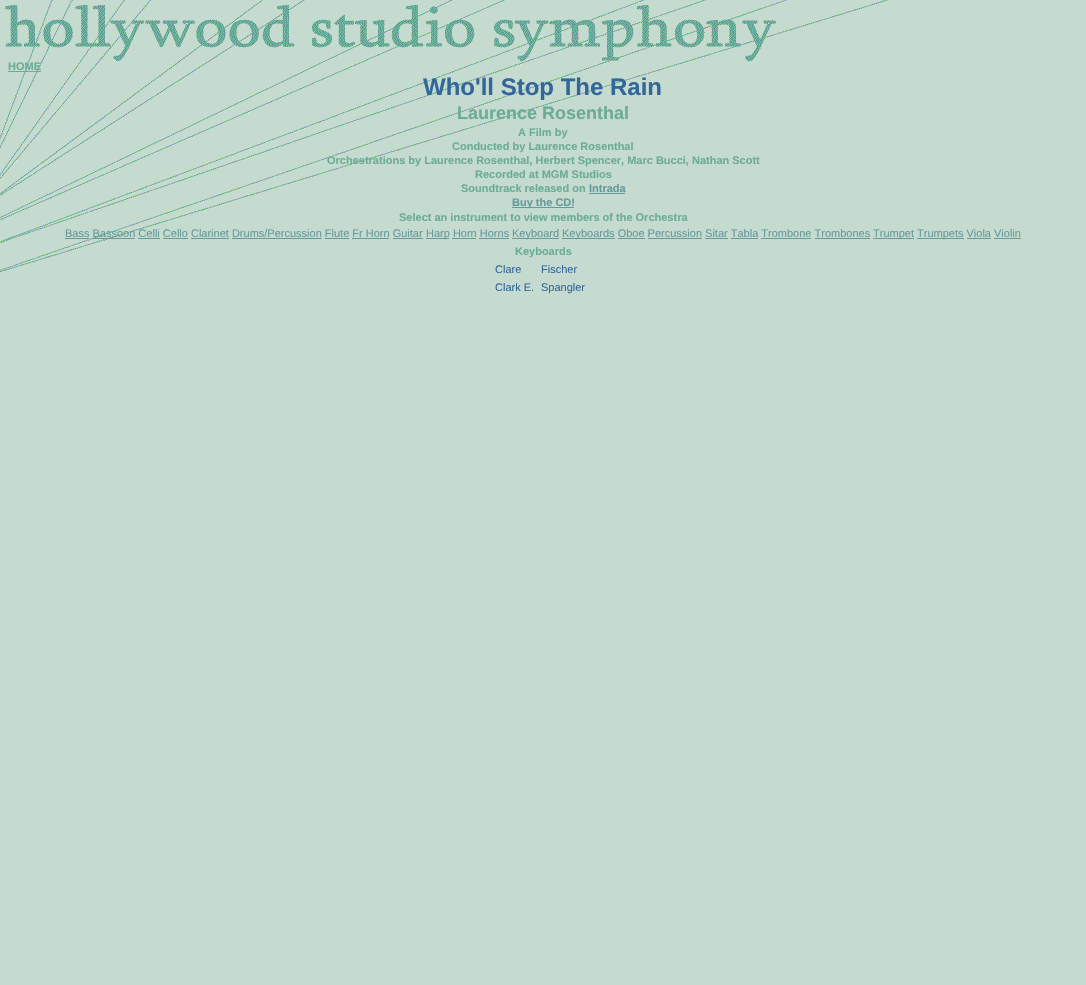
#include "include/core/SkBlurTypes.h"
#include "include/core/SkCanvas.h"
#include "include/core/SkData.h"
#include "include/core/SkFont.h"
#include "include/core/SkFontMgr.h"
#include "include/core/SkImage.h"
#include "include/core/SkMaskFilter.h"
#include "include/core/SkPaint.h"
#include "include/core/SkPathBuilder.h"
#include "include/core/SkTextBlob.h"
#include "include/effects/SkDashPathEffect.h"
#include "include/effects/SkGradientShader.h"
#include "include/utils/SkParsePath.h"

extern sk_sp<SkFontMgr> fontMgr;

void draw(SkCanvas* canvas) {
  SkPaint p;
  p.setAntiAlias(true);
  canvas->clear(SkColorSetRGB(197, 219, 207));
  canvas->drawImageRect(SkImages::DeferredFromEncodedData(SkData::MakeFromFileName("images/1.png")), SkRect::MakeLTRB(0, 0, 889, 272), SkSamplingOptions());
  p.setColor(SkColorSetRGB(107, 173, 148));
  canvas->drawRect(SkRect::MakeLTRB(8, 71, 41, 72), p);
  p.setColor(SkColorSetRGB(102, 153, 153));
  canvas->drawRect(SkRect::MakeLTRB(589, 193, 625, 194), p);
  canvas->drawRect(SkRect::MakeLTRB(512, 207, 574, 208), p);
  canvas->drawRect(SkRect::MakeLTRB(65, 238, 89, 239), p);
  canvas->drawRect(SkRect::MakeLTRB(426, 238, 449, 239), p);
  canvas->drawRect(SkRect::MakeLTRB(512, 238, 559, 239), p);
  canvas->drawRect(SkRect::MakeLTRB(562, 238, 615, 239), p);
  canvas->drawRect(SkRect::MakeLTRB(873, 238, 914, 239), p);
  canvas->drawRect(SkRect::MakeLTRB(917, 238, 964, 239), p);
  canvas->drawRect(SkRect::MakeLTRB(92, 238, 135, 239), p);
  canvas->drawRect(SkRect::MakeLTRB(138, 238, 160, 239), p);
  canvas->drawRect(SkRect::MakeLTRB(163, 238, 188, 239), p);
  canvas->drawRect(SkRect::MakeLTRB(191, 238, 229, 239), p);
  canvas->drawRect(SkRect::MakeLTRB(232, 238, 322, 239), p);
  canvas->drawRect(SkRect::MakeLTRB(325, 238, 349, 239), p);
  canvas->drawRect(SkRect::MakeLTRB(352, 238, 389, 239), p);
  canvas->drawRect(SkRect::MakeLTRB(393, 238, 423, 239), p);
  canvas->drawRect(SkRect::MakeLTRB(452, 238, 476, 239), p);
  canvas->drawRect(SkRect::MakeLTRB(479, 238, 509, 239), p);
  canvas->drawRect(SkRect::MakeLTRB(618, 238, 645, 239), p);
  canvas->drawRect(SkRect::MakeLTRB(648, 238, 702, 239), p);
  canvas->drawRect(SkRect::MakeLTRB(705, 238, 728, 239), p);
  canvas->drawRect(SkRect::MakeLTRB(731, 238, 758, 239), p);
  canvas->drawRect(SkRect::MakeLTRB(761, 238, 811, 239), p);
  canvas->drawRect(SkRect::MakeLTRB(815, 238, 870, 239), p);
  canvas->drawRect(SkRect::MakeLTRB(967, 238, 991, 239), p);
  canvas->drawRect(SkRect::MakeLTRB(994, 238, 1021, 239), p);
  SkFont font1(fontMgr->matchFamilyStyle("Liberation Sans", SkFontStyle::Bold()), 11);
  font1.setSubpixel(true);
  p.setColor(SkColorSetRGB(107, 173, 148));
  canvas->drawString("HOME", 8, 70, font1, p);
  SkFont font2(fontMgr->matchFamilyStyle("Liberation Sans", SkFontStyle::Bold()), 24);
  font2.setSubpixel(true);
  p.setColor(SkColorSetRGB(51, 102, 153));
  canvas->drawString("Who'll Stop The Rain", 423, 95, font2, p);
  SkFont font3(fontMgr->matchFamilyStyle("Liberation Sans", SkFontStyle::Bold()), 18);
  font3.setSubpixel(true);
  p.setColor(SkColorSetRGB(107, 173, 148));
  canvas->drawString("Laurence Rosenthal", 457, 119, font3, p);
  canvas->drawString("A Film by", 518, 136, font1, p);
  canvas->drawString("Conducted by Laurence Rosenthal", 452, 150, font1, p);
  canvas->drawString("Orchestrations by Laurence Rosenthal, Herbert Spencer, Marc Bucci, Nathan Scott", 327, 164, font1, p);
  canvas->drawString("Recorded at MGM Studios", 475, 178, font1, p);
  canvas->drawString("Soundtrack released on", 461, 192, font1, p);
  p.setColor(SkColorSetRGB(102, 153, 153));
  canvas->drawString("Intrada", 589, 192, font1, p);
  canvas->drawString("Buy the CD!", 512, 206, font1, p);
  p.setColor(SkColorSetRGB(107, 173, 148));
  canvas->drawString("Select an instrument to view members of the Orchestra", 399, 221, font1, p);
  SkFont font4(fontMgr->matchFamilyStyle("Liberation Sans", SkFontStyle::Normal()), 11);
  font4.setSubpixel(true);
  p.setColor(SkColorSetRGB(102, 153, 153));
  canvas->drawString("Bass Bassoon Celli Cello Clarinet Drums/Percussion Flute Fr Horn Guitar", 65, 237, font4, p);
  canvas->drawString("Harp Horn Horns", 426, 237, font4, p);
  canvas->drawString("Keyboard", 512, 237, font4, p);
  canvas->drawString("Keyboards Oboe Percussion Sitar Tabla Trombone Trombones", 562, 237, font4, p);
  canvas->drawString("Trumpet", 873, 237, font4, p);
  canvas->drawString("Trumpets Viola Violin", 917, 237, font4, p);
  p.setColor(SkColorSetRGB(107, 173, 148));
  canvas->drawString("Keyboards", 515, 255, font1, p);
  p.setColor(SkColorSetRGB(51, 102, 153));
  canvas->drawString("Clare", 495, 273, font4, p);
  canvas->drawString("Fischer", 541, 273, font4, p);
  canvas->drawString("Clark E.", 495, 291, font4, p);
  canvas->drawString("Spangler", 541, 291, font4, p);
}
